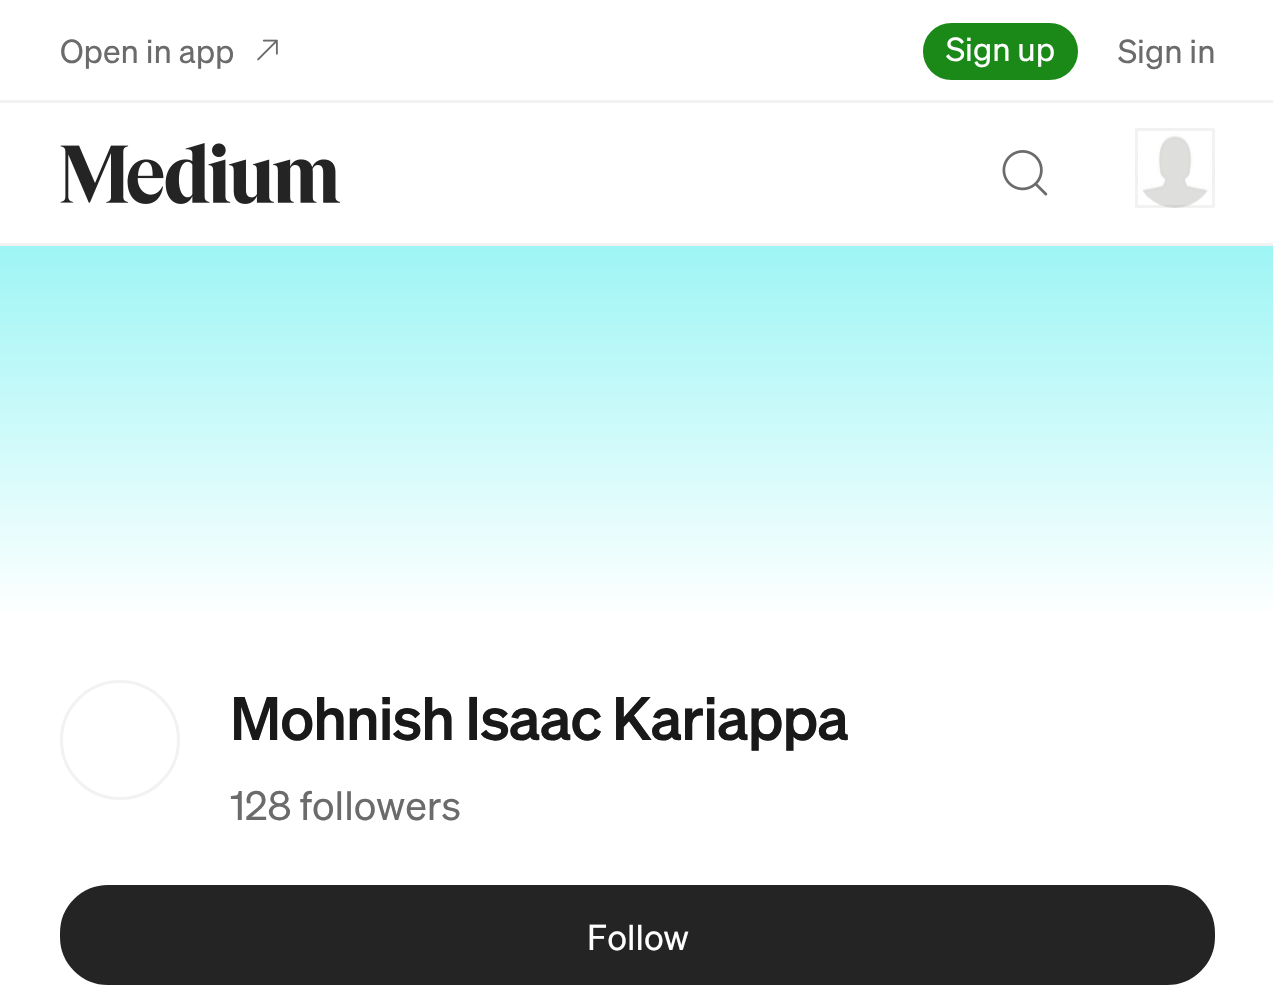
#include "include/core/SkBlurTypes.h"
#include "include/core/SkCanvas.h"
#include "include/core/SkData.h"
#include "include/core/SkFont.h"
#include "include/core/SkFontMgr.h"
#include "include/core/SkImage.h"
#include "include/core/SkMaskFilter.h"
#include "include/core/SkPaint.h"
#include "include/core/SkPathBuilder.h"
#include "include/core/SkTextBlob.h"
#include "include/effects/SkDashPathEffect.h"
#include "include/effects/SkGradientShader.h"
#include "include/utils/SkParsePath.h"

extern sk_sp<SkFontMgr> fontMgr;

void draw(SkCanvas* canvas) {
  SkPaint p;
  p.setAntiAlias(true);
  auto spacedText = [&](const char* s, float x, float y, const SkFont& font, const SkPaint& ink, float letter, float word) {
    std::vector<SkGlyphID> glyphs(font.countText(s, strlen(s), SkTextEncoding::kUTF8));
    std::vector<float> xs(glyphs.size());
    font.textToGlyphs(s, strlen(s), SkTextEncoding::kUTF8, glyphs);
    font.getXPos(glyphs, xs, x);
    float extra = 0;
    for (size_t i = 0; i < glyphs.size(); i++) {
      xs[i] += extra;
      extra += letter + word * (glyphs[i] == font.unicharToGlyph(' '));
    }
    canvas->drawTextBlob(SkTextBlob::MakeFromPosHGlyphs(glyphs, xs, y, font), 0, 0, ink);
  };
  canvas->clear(SK_ColorWHITE);
  p.setColor(SkColorSetRGB(242, 242, 242));
  canvas->drawRect(SkRect::MakeLTRB(0, 100, 1273, 103), p);
  canvas->drawImageRect(SkImages::DeferredFromEncodedData(SkData::MakeFromFileName("images/1.png")), SkRect::MakeLTRB(257, 39, 278, 61), SkSamplingOptions());
  p.setColor(SkColorSetRGB(26, 137, 23));
  canvas->drawRoundRect(SkRect::MakeLTRB(924.5f, 24.5f, 1076.5f, 78.5f), 27, 27, p);
  p.setStyle(SkPaint::kStroke_Style);
  p.setStrokeWidth(3);
  canvas->drawRoundRect(SkRect::MakeLTRB(924.5f, 24.5f, 1076.5f, 78.5f), 27, 27, p);
  p.setStyle(SkPaint::kFill_Style);
  p.setColor(SkColorSetRGB(242, 242, 242));
  canvas->drawRect(SkRect::MakeLTRB(0, 243, 1273, 246), p);
  canvas->drawImageRect(SkImages::DeferredFromEncodedData(SkData::MakeFromFileName("images/2.png")), SkRect::MakeLTRB(60, 143, 340, 204), SkSamplingOptions());
  canvas->drawImageRect(SkImages::DeferredFromEncodedData(SkData::MakeFromFileName("images/3.png")), SkRect::MakeLTRB(1002, 150, 1048, 196), SkSamplingOptions());
  canvas->drawCircle(1175, 168, 40, p);
  canvas->drawImageRect(SkImages::DeferredFromEncodedData(SkData::MakeFromFileName("images/4.png")), SkRect::MakeLTRB(1135, 128, 1215, 208), SkSamplingOptions());
  p.setStyle(SkPaint::kStroke_Style);
  p.setColor(SkColorSetARGB(13, 0, 0, 0));
  canvas->drawRect(SkRect::MakeLTRB(1136.5f, 129.5f, 1213.5f, 206.5f), p);
  p.setStyle(SkPaint::kFill_Style);
  {
    const SkColor colors[] = {SkColorSetRGB(158, 245, 245), SK_ColorWHITE};
    const float stops[] = {0, 1};
    const SkPoint ends[] = {{638, 245}, {638, 620}};
    p.setShader(SkGradientShader::MakeLinear(ends, colors, stops, 2, SkTileMode::kClamp));
    p.setAlpha(255);
  }
  canvas->drawRect(SkRect::MakeLTRB(0, 246, 1273, 610), p);
  p.setStyle(SkPaint::kStroke_Style);
  p.setShader(nullptr);
  p.setColor(SkColorSetRGB(242, 242, 242));
  canvas->drawCircle(120, 740, 58.5f, p);
  p.setStyle(SkPaint::kFill_Style);
  p.setColor(SkColorSetRGB(36, 36, 36));
  canvas->drawRoundRect(SkRect::MakeLTRB(61.5f, 886.5f, 1213.5f, 983.5f), 46.5f, 46.5f, p);
  p.setStyle(SkPaint::kStroke_Style);
  canvas->drawRoundRect(SkRect::MakeLTRB(61.5f, 886.5f, 1213.5f, 983.5f), 46.5f, 46.5f, p);
  SkFont font1(fontMgr->matchFamilyStyle("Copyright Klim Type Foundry", SkFontStyle::Italic()), 32.5f);
  font1.setSubpixel(true);
  p.setStyle(SkPaint::kFill_Style);
  p.setColor(SkColorSetRGB(107, 107, 107));
  canvas->drawString("Open in app", 60, 63, font1, p);
  p.setColor(SK_ColorWHITE);
  canvas->drawString("Sign up", 946, 61, font1, p);
  p.setColor(SkColorSetRGB(107, 107, 107));
  canvas->drawString("Sign in", 1118, 63, font1, p);
  SkFont font2(fontMgr->matchFamilyStyle("Copyright Klim Type Foundry", SkFontStyle(500, SkFontStyle::kNormal_Width, SkFontStyle::kItalic_Slant)), 60);
  font2.setSubpixel(true);
  p.setColor(SkColorSetRGB(25, 25, 25));
  spacedText("Mohnish Isaac Kariappa", 230, 740, font2, p, -1, 0);
  SkFont font3(fontMgr->matchFamilyStyle("Copyright Klim Type Foundry", SkFontStyle::Italic()), 40);
  font3.setSubpixel(true);
  p.setColor(SkColorSetRGB(107, 107, 107));
  canvas->drawString("128 followers", 230, 820, font3, p);
  SkFont font4(fontMgr->matchFamilyStyle("Copyright Klim Type Foundry", SkFontStyle::Italic()), 35);
  font4.setSubpixel(true);
  p.setColor(SK_ColorWHITE);
  canvas->drawString("Follow", 587, 950, font4, p);
}
